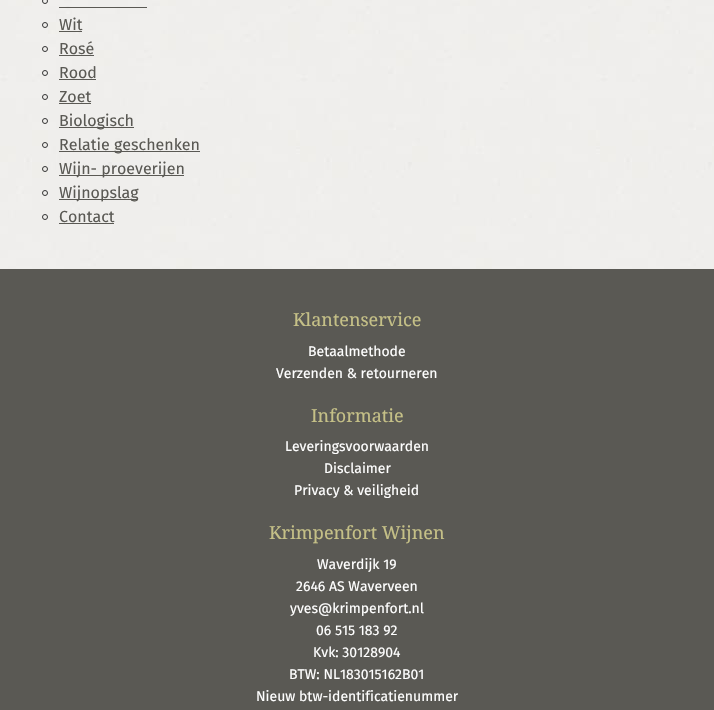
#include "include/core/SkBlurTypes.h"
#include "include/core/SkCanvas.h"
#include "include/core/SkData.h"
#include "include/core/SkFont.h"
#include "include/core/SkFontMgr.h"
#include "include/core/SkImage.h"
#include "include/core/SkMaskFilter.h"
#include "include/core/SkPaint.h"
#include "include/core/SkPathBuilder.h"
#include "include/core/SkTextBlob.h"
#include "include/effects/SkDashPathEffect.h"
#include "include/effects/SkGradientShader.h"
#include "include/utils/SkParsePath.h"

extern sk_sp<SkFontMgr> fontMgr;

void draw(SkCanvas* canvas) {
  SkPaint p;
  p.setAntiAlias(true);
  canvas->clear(SK_ColorWHITE);
  canvas->drawImageRect(SkImages::DeferredFromEncodedData(SkData::MakeFromFileName("images/1.png")), SkRect::MakeLTRB(0, 0, 714, 269), SkSamplingOptions());
  p.setStyle(SkPaint::kStroke_Style);
  p.setStrokeWidth(1);
  p.setColor(SkColorSetRGB(51, 51, 51));
  canvas->drawCircle(45, 1, 2.5f, p);
  p.setStyle(SkPaint::kFill_Style);
  p.setColor(SkColorSetRGB(90, 89, 84));
  canvas->drawRect(SkRect::MakeLTRB(59, 7, 147, 8), p);
  p.setStyle(SkPaint::kStroke_Style);
  p.setColor(SkColorSetRGB(51, 51, 51));
  canvas->drawCircle(45, 25, 2.5f, p);
  p.setStyle(SkPaint::kFill_Style);
  p.setColor(SkColorSetRGB(90, 89, 84));
  canvas->drawRect(SkRect::MakeLTRB(59, 31, 82, 32), p);
  p.setStyle(SkPaint::kStroke_Style);
  p.setColor(SkColorSetRGB(51, 51, 51));
  canvas->drawCircle(45, 49, 2.5f, p);
  p.setStyle(SkPaint::kFill_Style);
  p.setColor(SkColorSetRGB(90, 89, 84));
  canvas->drawRect(SkRect::MakeLTRB(59, 55, 94, 56), p);
  p.setStyle(SkPaint::kStroke_Style);
  p.setColor(SkColorSetRGB(51, 51, 51));
  canvas->drawCircle(45, 73, 2.5f, p);
  p.setStyle(SkPaint::kFill_Style);
  p.setColor(SkColorSetRGB(90, 89, 84));
  canvas->drawRect(SkRect::MakeLTRB(59, 79, 96, 80), p);
  p.setStyle(SkPaint::kStroke_Style);
  p.setColor(SkColorSetRGB(51, 51, 51));
  canvas->drawCircle(45, 97, 2.5f, p);
  p.setStyle(SkPaint::kFill_Style);
  p.setColor(SkColorSetRGB(90, 89, 84));
  canvas->drawRect(SkRect::MakeLTRB(59, 103, 91, 104), p);
  p.setStyle(SkPaint::kStroke_Style);
  p.setColor(SkColorSetRGB(51, 51, 51));
  canvas->drawCircle(45, 121, 2.5f, p);
  p.setStyle(SkPaint::kFill_Style);
  p.setColor(SkColorSetRGB(90, 89, 84));
  canvas->drawRect(SkRect::MakeLTRB(59, 127, 134, 128), p);
  p.setStyle(SkPaint::kStroke_Style);
  p.setColor(SkColorSetRGB(51, 51, 51));
  canvas->drawCircle(45, 145, 2.5f, p);
  p.setStyle(SkPaint::kFill_Style);
  p.setColor(SkColorSetRGB(90, 89, 84));
  canvas->drawRect(SkRect::MakeLTRB(59, 151, 200, 152), p);
  p.setStyle(SkPaint::kStroke_Style);
  p.setColor(SkColorSetRGB(51, 51, 51));
  canvas->drawCircle(45, 169, 2.5f, p);
  p.setStyle(SkPaint::kFill_Style);
  p.setColor(SkColorSetRGB(90, 89, 84));
  canvas->drawRect(SkRect::MakeLTRB(59, 175, 184, 176), p);
  p.setStyle(SkPaint::kStroke_Style);
  p.setColor(SkColorSetRGB(51, 51, 51));
  canvas->drawCircle(45, 193, 2.5f, p);
  p.setStyle(SkPaint::kFill_Style);
  p.setColor(SkColorSetRGB(90, 89, 84));
  canvas->drawRect(SkRect::MakeLTRB(59, 199, 138, 200), p);
  p.setStyle(SkPaint::kStroke_Style);
  p.setColor(SkColorSetRGB(51, 51, 51));
  canvas->drawCircle(45, 217, 2.5f, p);
  p.setStyle(SkPaint::kFill_Style);
  p.setColor(SkColorSetRGB(90, 89, 84));
  canvas->drawRect(SkRect::MakeLTRB(59, 223, 114, 224), p);
  canvas->drawRect(SkRect::MakeLTRB(0, 269, 714, 710), p);
  SkFont font1(fontMgr->matchFamilyStyle("Fira Sans", SkFontStyle::Normal()), 16);
  font1.setSubpixel(true);
  canvas->drawString("Wit", 59, 30, font1, p);
  canvas->drawString("Rosé", 59, 54, font1, p);
  canvas->drawString("Rood", 59, 78, font1, p);
  canvas->drawString("Zoet", 59, 102, font1, p);
  canvas->drawString("Biologisch", 59, 126, font1, p);
  canvas->drawString("Relatie geschenken", 59, 150, font1, p);
  canvas->drawString("Wijn- proeverijen", 59, 174, font1, p);
  canvas->drawString("Wijnopslag", 59, 198, font1, p);
  canvas->drawString("Contact", 59, 222, font1, p);
  SkFont font2(fontMgr->matchFamilyStyle("Noto Serif", SkFontStyle::Normal()), 18);
  font2.setSubpixel(true);
  p.setColor(SkColorSetRGB(197, 192, 135));
  canvas->drawString("Klantenservice", 293, 326, font2, p);
  SkFont font3(fontMgr->matchFamilyStyle("Fira Sans", SkFontStyle::Normal()), 14);
  font3.setSubpixel(true);
  p.setColor(SK_ColorWHITE);
  canvas->drawString("Betaalmethode", 308, 356, font3, p);
  canvas->drawString("Verzenden & retourneren", 276, 378, font3, p);
  p.setColor(SkColorSetRGB(197, 192, 135));
  canvas->drawString("Informatie", 311, 422, font2, p);
  p.setColor(SK_ColorWHITE);
  canvas->drawString("Leveringsvoorwaarden", 285, 451, font3, p);
  canvas->drawString("Disclaimer", 324, 473, font3, p);
  canvas->drawString("Privacy & veiligheid", 294, 495, font3, p);
  p.setColor(SkColorSetRGB(197, 192, 135));
  canvas->drawString("Krimpenfort Wijnen", 269, 539, font2, p);
  p.setColor(SK_ColorWHITE);
  canvas->drawString("Waverdijk 19", 317, 569, font3, p);
  canvas->drawString("2646 AS Waverveen", 296, 591, font3, p);
  canvas->drawString("yves@krimpenfort.nl", 290, 613, font3, p);
  canvas->drawString("06 515 183 92", 316, 635, font3, p);
  canvas->drawString("Kvk: 30128904", 313, 657, font3, p);
  canvas->drawString("BTW: NL183015162B01", 289, 679, font3, p);
  canvas->drawString("Nieuw btw-identificatienummer", 256, 701, font3, p);
}
